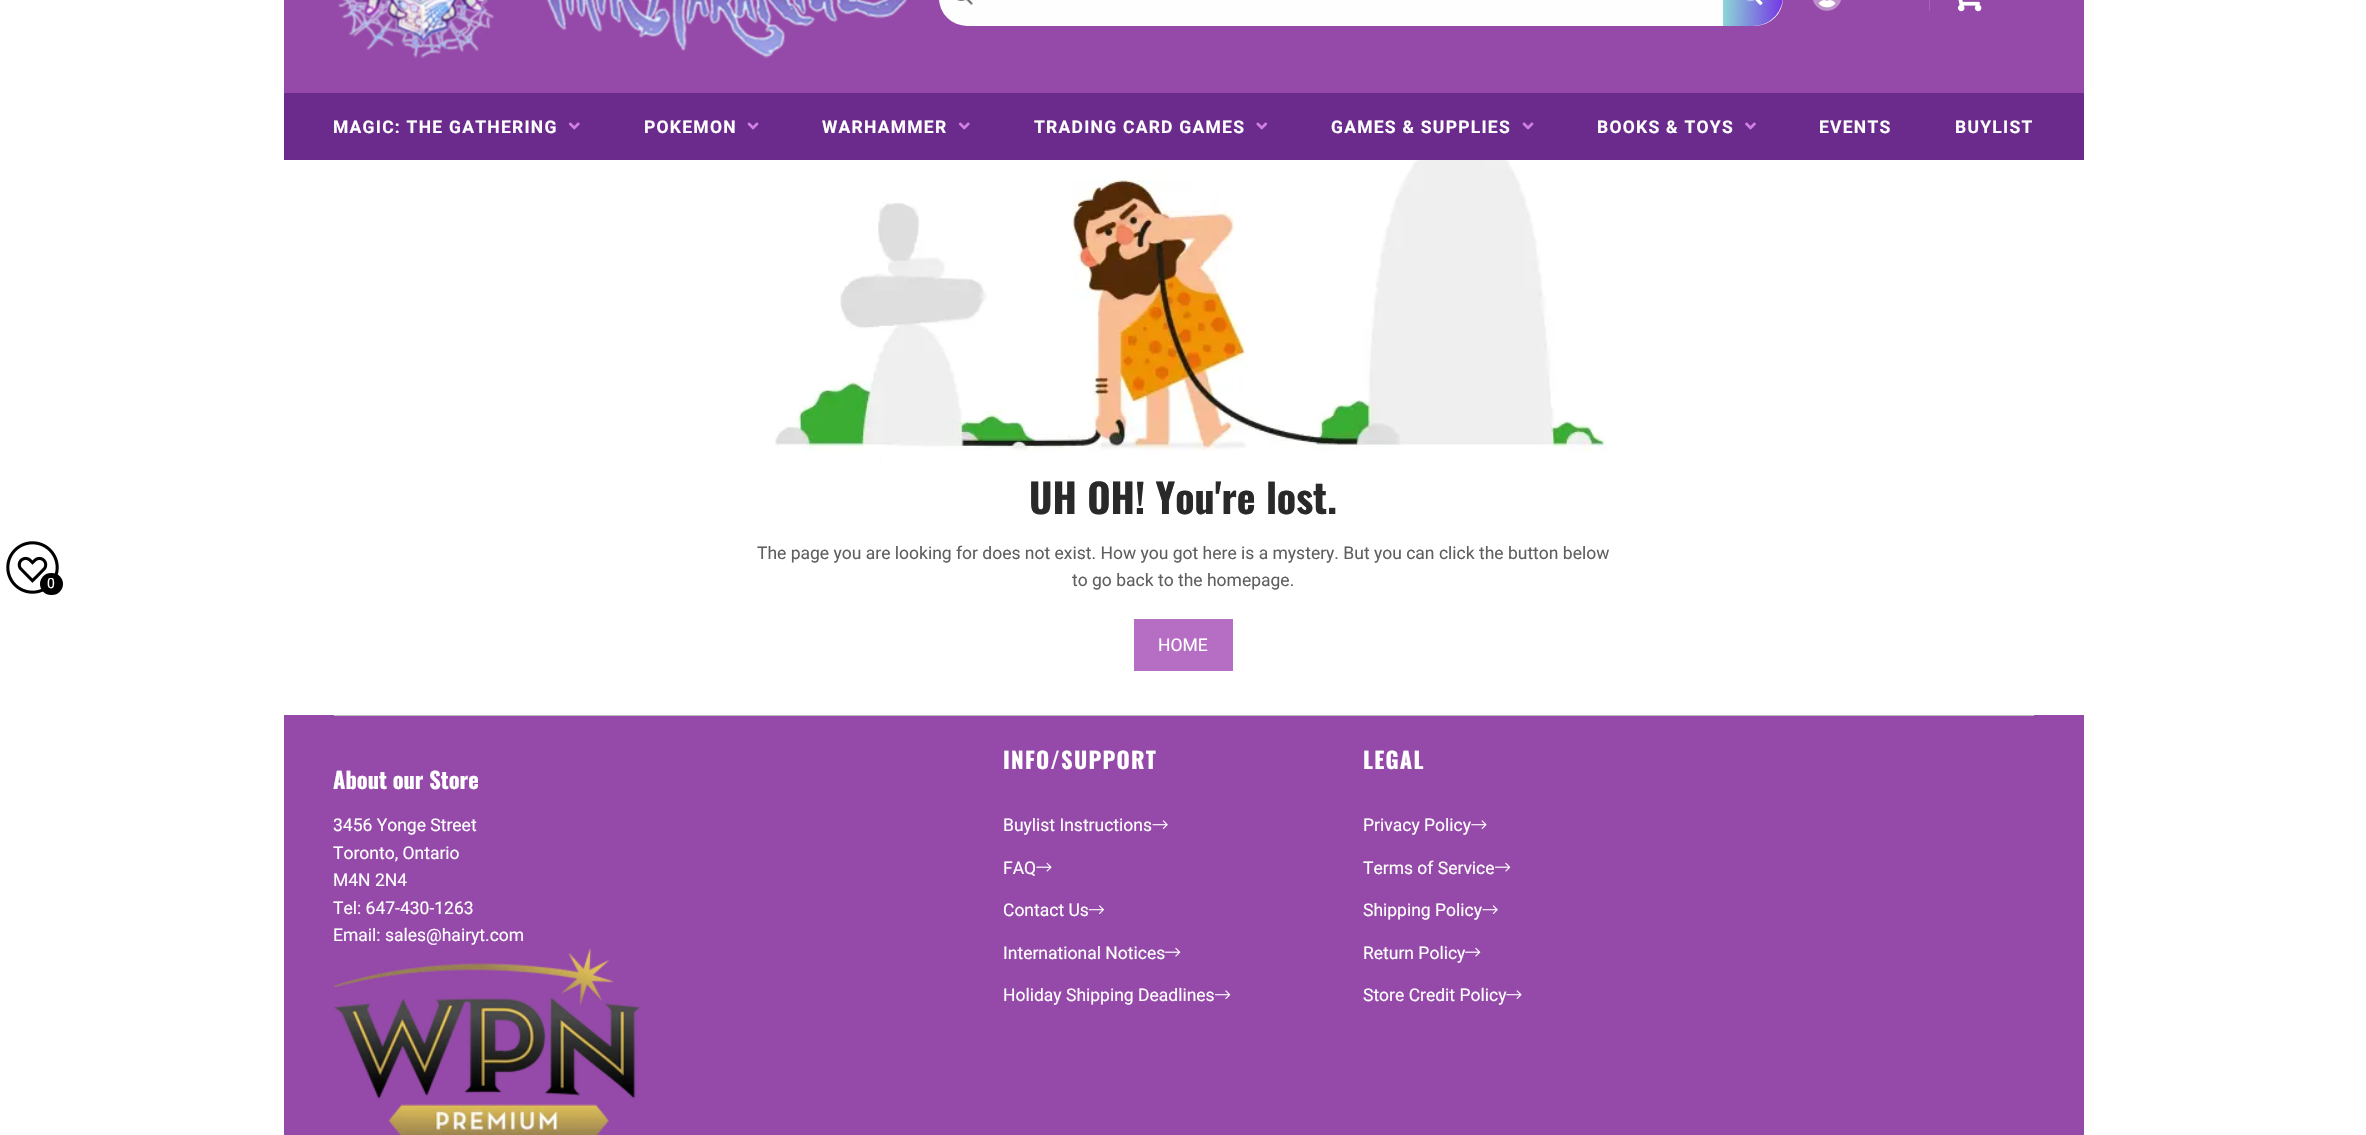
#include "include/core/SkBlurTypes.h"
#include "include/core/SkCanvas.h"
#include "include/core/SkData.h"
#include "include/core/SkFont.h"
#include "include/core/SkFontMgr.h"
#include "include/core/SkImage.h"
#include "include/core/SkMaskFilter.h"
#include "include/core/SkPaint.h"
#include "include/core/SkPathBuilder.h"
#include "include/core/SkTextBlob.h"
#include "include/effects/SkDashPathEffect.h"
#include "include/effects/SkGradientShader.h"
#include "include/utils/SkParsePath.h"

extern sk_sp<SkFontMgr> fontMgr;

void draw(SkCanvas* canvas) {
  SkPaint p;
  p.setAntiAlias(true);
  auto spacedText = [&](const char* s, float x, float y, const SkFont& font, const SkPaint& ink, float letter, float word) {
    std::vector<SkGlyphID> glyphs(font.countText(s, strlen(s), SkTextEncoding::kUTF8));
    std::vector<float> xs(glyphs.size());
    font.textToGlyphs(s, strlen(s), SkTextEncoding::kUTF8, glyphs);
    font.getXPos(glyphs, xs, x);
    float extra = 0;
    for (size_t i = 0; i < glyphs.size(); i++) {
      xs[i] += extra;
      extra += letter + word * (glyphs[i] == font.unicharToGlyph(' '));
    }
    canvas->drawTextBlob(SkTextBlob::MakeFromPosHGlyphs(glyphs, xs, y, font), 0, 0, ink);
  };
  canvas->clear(SK_ColorWHITE);
  canvas->drawImageRect(SkImages::DeferredFromEncodedData(SkData::MakeFromFileName("images/2.png")), SkRect::MakeLTRB(0, 0, 2366, 1135), SkSamplingOptions());
  canvas->drawImageRect(SkImages::DeferredFromEncodedData(SkData::MakeFromFileName("images/1.png")), SkRect::MakeLTRB(6, 541, 59, 594), SkSamplingOptions());
  p.setColor(SK_ColorBLACK);
  canvas->drawRoundRect(SkRect::MakeLTRB(40, 573, 63, 595), 11, 11, p);
  p.setColor(SK_ColorWHITE);
  canvas->drawRect(SkRect::MakeLTRB(882, 160, 1485, 715), p);
  p.setColor(SkColorSetRGB(149, 73, 169));
  canvas->drawRect(SkRect::MakeLTRB(284, 0, 2084, 93), p);
  canvas->drawImageRect(SkImages::DeferredFromEncodedData(SkData::MakeFromFileName("images/3.png")), SkRect::MakeLTRB(338, 0, 907, 58), SkSamplingOptions());
  p.setColor(SkColorSetRGB(254, 254, 254));
  canvas->drawRoundRect(SkRect::MakeLTRB(939, -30, 1783, 26), 30, 30, p);
  canvas->drawImageRect(SkImages::DeferredFromEncodedData(SkData::MakeFromFileName("images/4.png")), SkRect::MakeLTRB(957, 0, 973, 5), SkSamplingOptions());
  {
    const SkColor colors[] = {SkColorSetRGB(117, 53, 229), SkColorSetRGB(139, 219, 214)};
    const float stops[] = {0, 1};
    const SkPoint ends[] = {{1783, -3}, {1722, -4.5f}};
    p.setShader(SkGradientShader::MakeLinear(ends, colors, stops, 2, SkTileMode::kClamp));
    p.setAlpha(255);
  }
  canvas->drawPath(SkPathBuilder().moveTo(1723, -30).lineTo(1753, -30).cubicTo(1769.5f, -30, 1783, -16.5f, 1783, 0).lineTo(1783, -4).cubicTo(1783, 12.5f, 1769.5f, 26, 1753, 26).lineTo(1723, 26).close().detach(), p);
  canvas->drawImageRect(SkImages::DeferredFromEncodedData(SkData::MakeFromFileName("images/5.png")), SkRect::MakeLTRB(1746, 0, 1755, 2), SkSamplingOptions());
  canvas->drawImageRect(SkImages::DeferredFromEncodedData(SkData::MakeFromFileName("images/6.png")), SkRect::MakeLTRB(1755, 0, 1763, 5), SkSamplingOptions());
  p.setShader(nullptr);
  p.setColor(SkColorSetRGB(164, 98, 181));
  canvas->drawRect(SkRect::MakeLTRB(1929, 0, 1930, 11), p);
  canvas->drawImageRect(SkImages::DeferredFromEncodedData(SkData::MakeFromFileName("images/8.png")), SkRect::MakeLTRB(1818, 0, 1836, 8), SkSamplingOptions());
  canvas->drawImageRect(SkImages::DeferredFromEncodedData(SkData::MakeFromFileName("images/7.png")), SkRect::MakeLTRB(1813, 0, 1841, 11), SkSamplingOptions());
  canvas->drawImageRect(SkImages::DeferredFromEncodedData(SkData::MakeFromFileName("images/9.png")), SkRect::MakeLTRB(1958, 0, 1982, 12), SkSamplingOptions());
  p.setColor(SkColorSetRGB(107, 43, 140));
  canvas->drawRect(SkRect::MakeLTRB(284, 93, 2084, 160), p);
  canvas->drawImageRect(SkImages::DeferredFromEncodedData(SkData::MakeFromFileName("images/10.png")), SkRect::MakeLTRB(568, 122, 580, 130), SkSamplingOptions());
  canvas->drawImageRect(SkImages::DeferredFromEncodedData(SkData::MakeFromFileName("images/11.png")), SkRect::MakeLTRB(747, 122, 759, 130), SkSamplingOptions());
  canvas->drawImageRect(SkImages::DeferredFromEncodedData(SkData::MakeFromFileName("images/10.png")), SkRect::MakeLTRB(958, 122, 970, 130), SkSamplingOptions());
  canvas->drawImageRect(SkImages::DeferredFromEncodedData(SkData::MakeFromFileName("images/12.png")), SkRect::MakeLTRB(1256, 122, 1268, 130), SkSamplingOptions());
  canvas->drawImageRect(SkImages::DeferredFromEncodedData(SkData::MakeFromFileName("images/11.png")), SkRect::MakeLTRB(1522, 122, 1534, 130), SkSamplingOptions());
  canvas->drawImageRect(SkImages::DeferredFromEncodedData(SkData::MakeFromFileName("images/13.png")), SkRect::MakeLTRB(1745, 122, 1756, 130), SkSamplingOptions());
  canvas->drawImageRect(SkImages::DeferredFromEncodedData(SkData::MakeFromFileName("images/14.png")), SkRect::MakeLTRB(775, 160, 1606, 453), SkSamplingOptions());
  p.setColor(SkColorSetRGB(182, 110, 196));
  canvas->drawRect(SkRect::MakeLTRB(1134, 619, 1233, 671), p);
  p.setColor(SkColorSetRGB(149, 73, 169));
  canvas->drawRect(SkRect::MakeLTRB(284, 715, 2084, 1135), p);
  p.setColor(SkColorSetRGB(189, 189, 189));
  canvas->drawRect(SkRect::MakeLTRB(334, 715, 2034, 716), p);
  canvas->drawImageRect(SkImages::DeferredFromEncodedData(SkData::MakeFromFileName("images/15.png")), SkRect::MakeLTRB(333, 948, 640, 1135), SkSamplingOptions());
  canvas->drawImageRect(SkImages::DeferredFromEncodedData(SkData::MakeFromFileName("images/16.png")), SkRect::MakeLTRB(1152, 820, 1168, 829), SkSamplingOptions());
  canvas->drawImageRect(SkImages::DeferredFromEncodedData(SkData::MakeFromFileName("images/17.png")), SkRect::MakeLTRB(1036, 862, 1052, 872), SkSamplingOptions());
  canvas->drawImageRect(SkImages::DeferredFromEncodedData(SkData::MakeFromFileName("images/19.png")), SkRect::MakeLTRB(1165, 947, 1181, 957), SkSamplingOptions());
  canvas->drawImageRect(SkImages::DeferredFromEncodedData(SkData::MakeFromFileName("images/20.png")), SkRect::MakeLTRB(1215, 990, 1231, 999), SkSamplingOptions());
  canvas->drawImageRect(SkImages::DeferredFromEncodedData(SkData::MakeFromFileName("images/21.png")), SkRect::MakeLTRB(1471, 820, 1487, 829), SkSamplingOptions());
  canvas->drawImageRect(SkImages::DeferredFromEncodedData(SkData::MakeFromFileName("images/19.png")), SkRect::MakeLTRB(1495, 862, 1511, 872), SkSamplingOptions());
  canvas->drawImageRect(SkImages::DeferredFromEncodedData(SkData::MakeFromFileName("images/16.png")), SkRect::MakeLTRB(1482, 905, 1498, 914), SkSamplingOptions());
  SkFont font1(fontMgr->matchFamilyStyle("Roboto", SkFontStyle::Normal()), 14);
  font1.setSubpixel(true);
  p.setColor(SK_ColorWHITE);
  canvas->drawString("0", 47, 588, font1, p);
  SkFont font2(fontMgr->matchFamilyStyle("Roboto", SkFontStyle::Bold()), 17.5f);
  font2.setSubpixel(true);
  spacedText("MAGIC: THE GATHERING", 333, 133, font2, p, 1.25f, 0);
  spacedText("POKEMON", 644, 133, font2, p, 1.25f, 0);
  spacedText("WARHAMMER", 822, 133, font2, p, 1.25f, 0);
  spacedText("TRADING CARD GAMES", 1034, 133, font2, p, 1.25f, 0);
  spacedText("GAMES & SUPPLIES", 1331, 133, font2, p, 1.25f, 0);
  spacedText("BOOKS & TOYS", 1597, 133, font2, p, 1.25f, 0);
  spacedText("EVENTS", 1819, 133, font2, p, 1.25f, 0);
  spacedText("BUYLIST", 1955, 133, font2, p, 1.25f, 0);
  SkFont font3(fontMgr->matchFamilyStyle("Oswald", SkFontStyle::Bold()), 40);
  font3.setSubpixel(true);
  p.setColor(SkColorSetRGB(41, 41, 41));
  canvas->drawString("UH OH! You're lost.", 1029, 514, font3, p);
  SkFont font4(fontMgr->matchFamilyStyle("Roboto", SkFontStyle::Normal()), 17.5f);
  font4.setSubpixel(true);
  p.setColor(SkColorSetRGB(95, 95, 95));
  canvas->drawString("The page you are looking for does not exist. How you got here is a mystery. But you can click the button below", 757, 559, font4, p);
  canvas->drawString("to go back to the homepage.", 1072, 586, font4, p);
  p.setColor(SK_ColorWHITE);
  canvas->drawString("HOME", 1158, 651, font4, p);
  SkFont font5(fontMgr->matchFamilyStyle("Oswald", SkFontStyle::Bold()), 22.5f);
  font5.setSubpixel(true);
  canvas->drawString("About our Store", 333, 789, font5, p);
  canvas->drawString("3456 Yonge Street", 333, 831, font4, p);
  canvas->drawString("Toronto, Ontario", 333, 859, font4, p);
  canvas->drawString("M4N 2N4", 333, 886, font4, p);
  canvas->drawString("Tel: 647-430-1263", 333, 914, font4, p);
  canvas->drawString("Email: sales@hairyt.com", 333, 941, font4, p);
  spacedText("INFO/SUPPORT", 1003, 769, font5, p, 1.25f, 0);
  canvas->drawString("Buylist Instructions", 1003, 831, font4, p);
  canvas->drawString("FAQ", 1003, 874, font4, p);
  canvas->drawString("Contact Us", 1003, 916, font4, p);
  canvas->drawImageRect(SkImages::DeferredFromEncodedData(SkData::MakeFromFileName("images/18.png")), SkRect::MakeLTRB(1088, 905, 1104, 914), SkSamplingOptions());
  canvas->drawString("International Notices", 1003, 959, font4, p);
  canvas->drawString("Holiday Shipping Deadlines", 1003, 1001, font4, p);
  spacedText("LEGAL", 1363, 769, font5, p, 1.25f, 0);
  canvas->drawString("Privacy Policy", 1363, 831, font4, p);
  canvas->drawString("Terms of Service", 1363, 874, font4, p);
  canvas->drawString("Shipping Policy", 1363, 916, font4, p);
  canvas->drawString("Return Policy", 1363, 959, font4, p);
  canvas->drawImageRect(SkImages::DeferredFromEncodedData(SkData::MakeFromFileName("images/22.png")), SkRect::MakeLTRB(1465, 947, 1481, 957), SkSamplingOptions());
  canvas->drawString("Store Credit Policy", 1363, 1001, font4, p);
  canvas->drawImageRect(SkImages::DeferredFromEncodedData(SkData::MakeFromFileName("images/23.png")), SkRect::MakeLTRB(1506, 990, 1522, 999), SkSamplingOptions());
}
